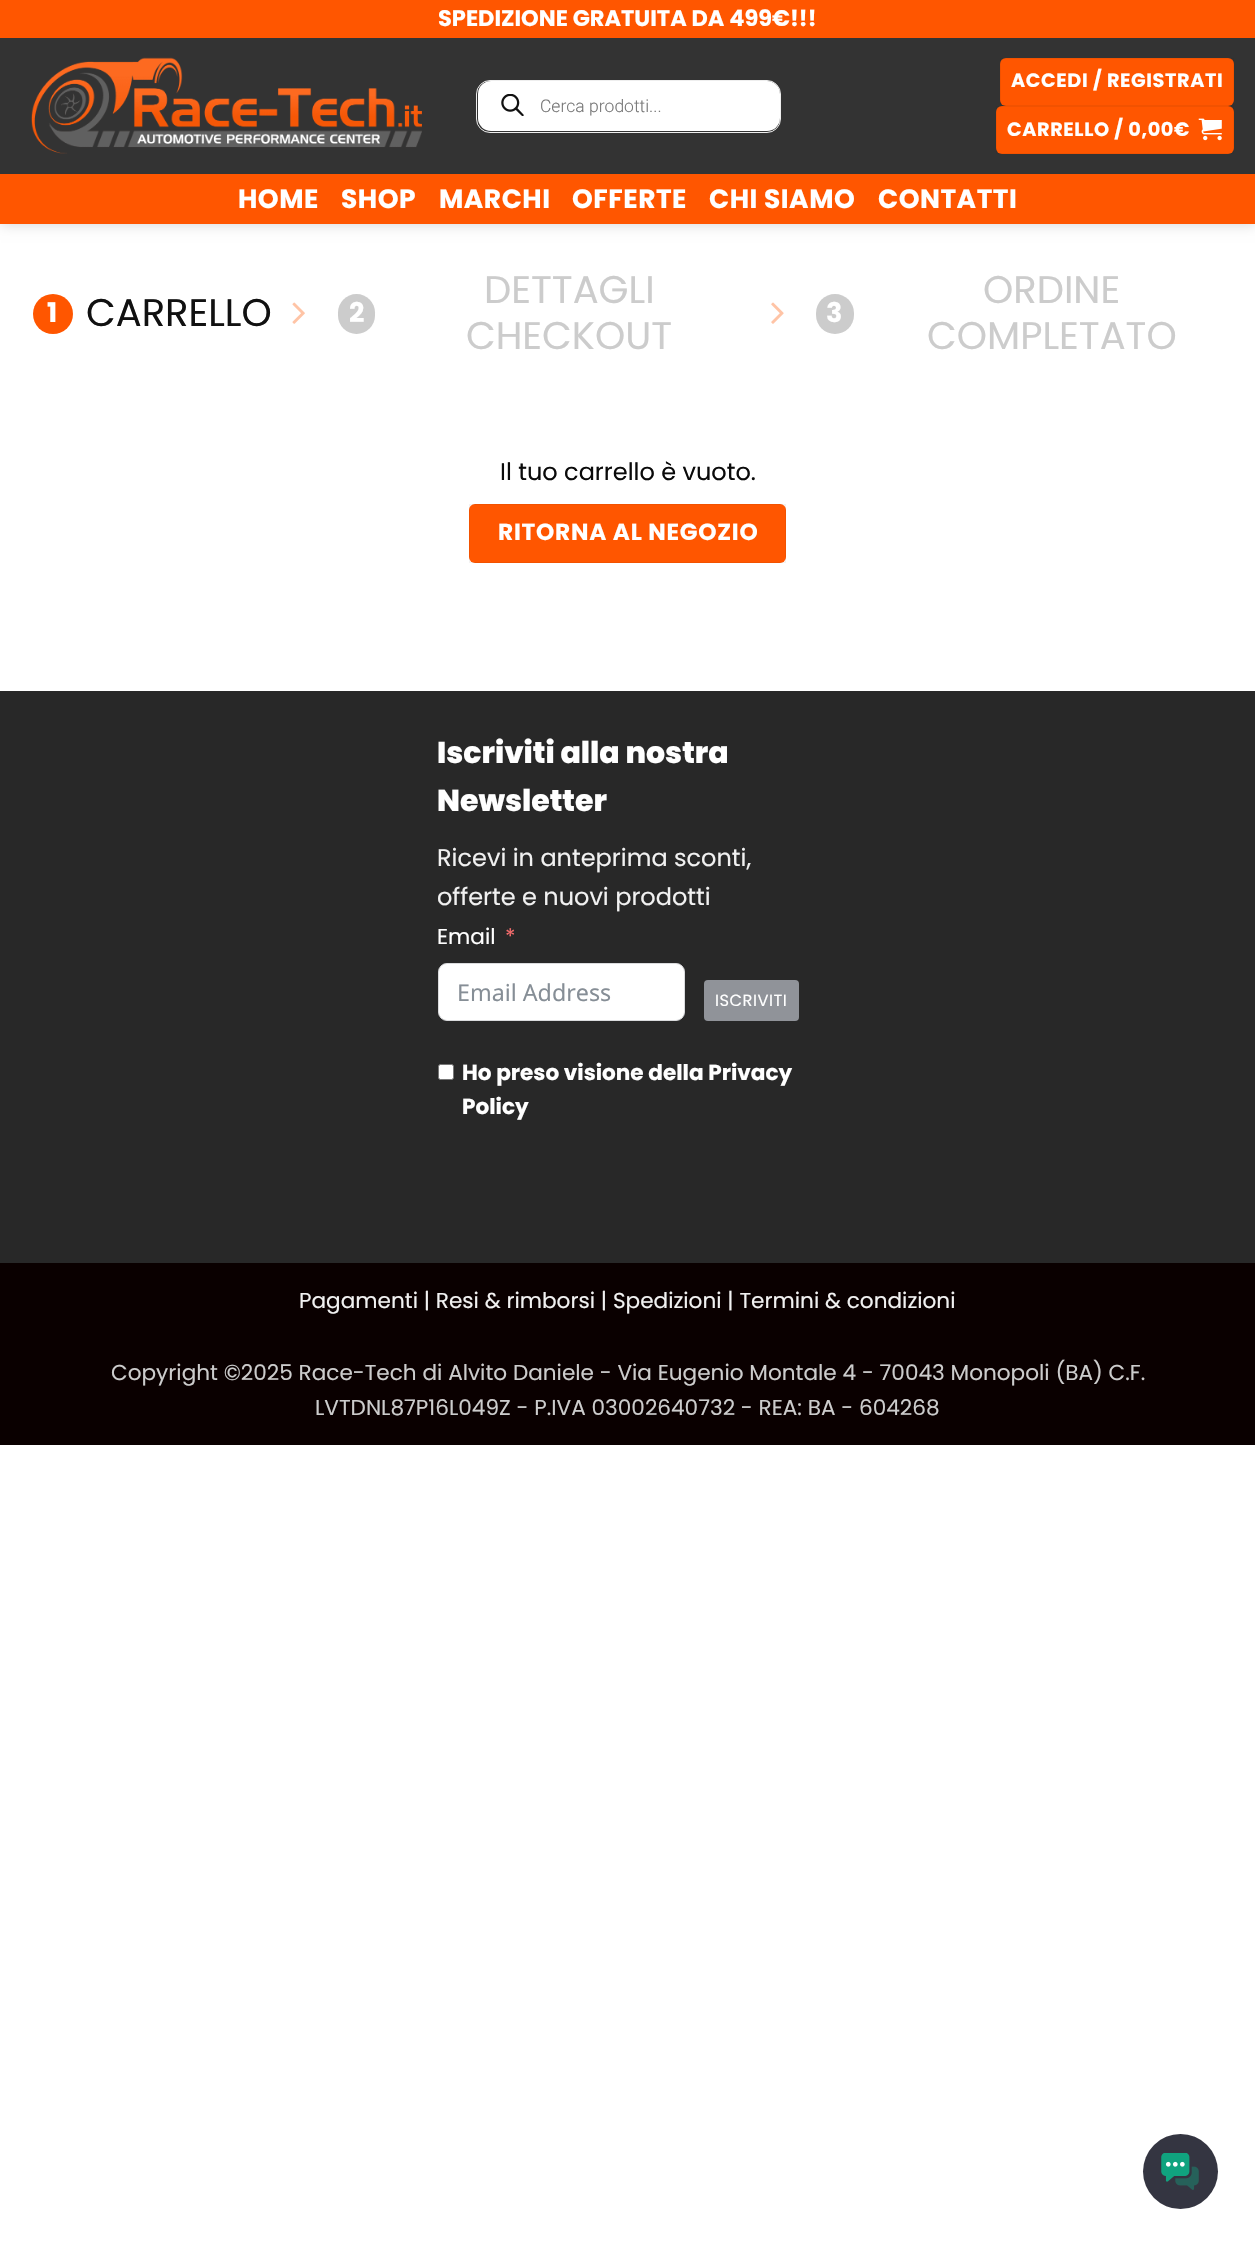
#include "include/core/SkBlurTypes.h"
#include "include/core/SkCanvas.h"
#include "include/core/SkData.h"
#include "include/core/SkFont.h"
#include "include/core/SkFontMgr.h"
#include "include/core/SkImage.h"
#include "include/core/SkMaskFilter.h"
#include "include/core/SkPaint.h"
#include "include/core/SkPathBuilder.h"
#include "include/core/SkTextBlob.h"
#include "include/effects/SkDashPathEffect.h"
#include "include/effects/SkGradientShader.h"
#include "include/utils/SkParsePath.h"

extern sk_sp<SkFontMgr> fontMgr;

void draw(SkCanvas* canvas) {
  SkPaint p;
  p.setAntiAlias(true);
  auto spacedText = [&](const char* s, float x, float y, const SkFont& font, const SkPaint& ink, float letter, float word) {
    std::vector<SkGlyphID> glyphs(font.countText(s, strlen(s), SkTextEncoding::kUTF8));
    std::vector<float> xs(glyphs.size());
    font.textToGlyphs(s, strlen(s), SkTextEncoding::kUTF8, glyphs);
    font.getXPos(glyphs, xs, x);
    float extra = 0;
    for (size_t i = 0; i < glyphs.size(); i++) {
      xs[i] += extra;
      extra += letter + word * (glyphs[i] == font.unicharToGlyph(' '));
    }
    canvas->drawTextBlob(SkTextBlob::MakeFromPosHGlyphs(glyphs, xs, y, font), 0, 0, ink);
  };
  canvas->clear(SK_ColorWHITE);
  p.setColor(SkColorSetARGB(38, 0, 0, 0));
  p.setMaskFilter(SkMaskFilter::MakeBlur(kNormal_SkBlurStyle, 6));
  canvas->drawRect(SkRect::MakeLTRB(1, 1, 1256, 225), p);
  p.setMaskFilter(nullptr);
  p.setColor(SkColorSetRGB(255, 86, 0));
  canvas->drawRect(SkRect::MakeLTRB(0, 0, 1255, 38), p);
  p.setColor(SkColorSetRGB(51, 51, 51));
  canvas->drawRect(SkRect::MakeLTRB(0, 38, 1255, 174), p);
  canvas->drawImageRect(SkImages::DeferredFromEncodedData(SkData::MakeFromFileName("images/1.png")), SkRect::MakeLTRB(31, 57, 422, 154), SkSamplingOptions());
  p.setStyle(SkPaint::kStroke_Style);
  p.setStrokeWidth(1);
  p.setColor(SkColorSetRGB(238, 238, 238));
  canvas->drawRoundRect(SkRect::MakeLTRB(476.5f, 80.5f, 780.5f, 132.5f), 13.5f, 13.5f, p);
  p.setStyle(SkPaint::kFill_Style);
  p.setColor(SK_ColorWHITE);
  canvas->drawRoundRect(SkRect::MakeLTRB(478, 81, 780, 131), 13, 13, p);
  canvas->drawImageRect(SkImages::DeferredFromEncodedData(SkData::MakeFromFileName("images/2.png")), SkRect::MakeLTRB(501, 94, 524, 116), SkSamplingOptions());
  p.setColor(SkColorSetRGB(255, 86, 0));
  canvas->drawRoundRect(SkRect::MakeLTRB(1000, 58, 1234, 106), 6, 6, p);
  p.setStyle(SkPaint::kStroke_Style);
  p.setColor(SkColorSetARGB(13, 0, 0, 0));
  canvas->drawRect(SkRect::MakeLTRB(1000.5f, 58.5f, 1233.5f, 105.5f), p);
  p.setStyle(SkPaint::kFill_Style);
  p.setColor(SkColorSetRGB(255, 86, 0));
  canvas->drawRoundRect(SkRect::MakeLTRB(996, 106, 1234, 154), 6, 6, p);
  p.setStyle(SkPaint::kStroke_Style);
  p.setColor(SkColorSetARGB(13, 0, 0, 0));
  canvas->drawRect(SkRect::MakeLTRB(996.5f, 106.5f, 1233.5f, 153.5f), p);
  canvas->drawImageRect(SkImages::DeferredFromEncodedData(SkData::MakeFromFileName("images/3.png")), SkRect::MakeLTRB(1198, 118, 1222, 141), SkSamplingOptions());
  p.setStyle(SkPaint::kFill_Style);
  p.setColor(SkColorSetRGB(255, 86, 0));
  canvas->drawRect(SkRect::MakeLTRB(0, 174, 1255, 224), p);
  canvas->drawCircle(53, 314, 20, p);
  canvas->drawImageRect(SkImages::DeferredFromEncodedData(SkData::MakeFromFileName("images/4.png")), SkRect::MakeLTRB(292, 302, 305, 324), SkSamplingOptions());
  p.setColor(SkColorSetRGB(204, 204, 204));
  canvas->drawRoundRect(SkRect::MakeLTRB(338, 294, 375, 334), 18.5f, 18.5f, p);
  canvas->drawImageRect(SkImages::DeferredFromEncodedData(SkData::MakeFromFileName("images/5.png")), SkRect::MakeLTRB(771, 302, 784, 324), SkSamplingOptions());
  canvas->drawRoundRect(SkRect::MakeLTRB(816, 294, 854, 334), 19, 19, p);
  p.setColor(SkColorSetRGB(255, 86, 0));
  canvas->drawRoundRect(SkRect::MakeLTRB(469, 504, 786, 563), 6, 6, p);
  p.setStyle(SkPaint::kStroke_Style);
  p.setColor(SkColorSetARGB(13, 0, 0, 0));
  canvas->drawRect(SkRect::MakeLTRB(469.5f, 504.5f, 785.5f, 562.5f), p);
  p.setStyle(SkPaint::kFill_Style);
  p.setColor(SkColorSetRGB(40, 40, 40));
  canvas->drawRect(SkRect::MakeLTRB(0, 691, 1255, 1263), p);
  p.setColor(SK_ColorWHITE);
  canvas->drawRoundRect(SkRect::MakeLTRB(438.5f, 963.5f, 684.5f, 1020.5f), 8.5f, 8.5f, p);
  p.setStyle(SkPaint::kStroke_Style);
  p.setColor(SkColorSetRGB(218, 219, 221));
  canvas->drawRoundRect(SkRect::MakeLTRB(438.5f, 963.5f, 684.5f, 1020.5f), 8.5f, 8.5f, p);
  p.setStyle(SkPaint::kFill_Style);
  p.setColor(SkColorSetRGB(144, 147, 153));
  canvas->drawRoundRect(SkRect::MakeLTRB(704, 980, 799, 1021), 4, 4, p);
  p.setColor(SK_ColorWHITE);
  canvas->drawRoundRect(SkRect::MakeLTRB(438.5f, 1064.5f, 453.5f, 1079.5f), 2, 2, p);
  p.setStyle(SkPaint::kStroke_Style);
  p.setColor(SkColorSetRGB(118, 118, 118));
  canvas->drawRoundRect(SkRect::MakeLTRB(438.5f, 1064.5f, 453.5f, 1079.5f), 2, 2, p);
  p.setStyle(SkPaint::kFill_Style);
  p.setColor(SkColorSetRGB(52, 53, 65));
  canvas->drawCircle(1180.5f, 2171.5f, 37.5f, p);
  canvas->drawImageRect(SkImages::DeferredFromEncodedData(SkData::MakeFromFileName("images/6.png")), SkRect::MakeLTRB(1161, 2153, 1199, 2190), SkSamplingOptions());
  p.setColor(SkColorSetRGB(10, 0, 0));
  canvas->drawRect(SkRect::MakeLTRB(0, 1263, 1255, 1445), p);
  SkFont font1(fontMgr->matchFamilyStyle("Poppins", SkFontStyle::Bold()), 22.5f);
  font1.setSubpixel(true);
  p.setColor(SK_ColorWHITE);
  canvas->drawString("SPEDIZIONE GRATUITA DA 499€!!!", 438, 26, font1, p);
  SkFont font2(fontMgr->matchFamilyStyle("Roboto", SkFontStyle(300, SkFontStyle::kNormal_Width, SkFontStyle::kUpright_Slant)), 17.5f);
  font2.setSubpixel(true);
  p.setColor(SkColorSetRGB(119, 119, 119));
  canvas->drawString("Cerca prodotti...", 540, 112, font2, p);
  SkFont font3(fontMgr->matchFamilyStyle("Poppins", SkFontStyle::Bold()), 19.25f);
  font3.setSubpixel(true);
  p.setColor(SK_ColorWHITE);
  spacedText("ACCEDI / REGISTRATI", 1011, 87, font3, p, 0.6f, 0);
  spacedText("CARRELLO / 0,00€", 1007, 136, font3, p, 0.6f, 0);
  SkFont font4(fontMgr->matchFamilyStyle("Poppins", SkFontStyle::Bold()), 26.5f);
  font4.setSubpixel(true);
  spacedText("HOME", 238, 208, font4, p, 0.5f, 0);
  spacedText("SHOP", 341, 208, font4, p, 0.5f, 0);
  spacedText("MARCHI", 439, 208, font4, p, 0.5f, 0);
  spacedText("OFFERTE", 572, 208, font4, p, 0.5f, 0);
  spacedText("CHI SIAMO", 709, 208, font4, p, 0.5f, 0);
  spacedText("CONTATTI", 878, 208, font4, p, 0.5f, 0);
  SkFont font5(fontMgr->matchFamilyStyle("Poppins", SkFontStyle::Bold()), 27);
  font5.setSubpixel(true);
  canvas->drawString("1", 47, 322, font5, p);
  SkFont font6(fontMgr->matchFamilyStyle("Poppins", SkFontStyle::Normal()), 38.5f);
  font6.setSubpixel(true);
  p.setColor(SkColorSetRGB(17, 17, 17));
  canvas->drawString("CARRELLO", 86, 326, font6, p);
  p.setColor(SkColorSetRGB(204, 204, 204));
  canvas->drawString("DETTAGLI", 484, 303, font6, p);
  p.setColor(SK_ColorWHITE);
  canvas->drawString("2", 349, 322, font5, p);
  p.setColor(SkColorSetRGB(204, 204, 204));
  canvas->drawString("CHECKOUT", 466, 349, font6, p);
  canvas->drawString("ORDINE", 983, 303, font6, p);
  p.setColor(SK_ColorWHITE);
  canvas->drawString("3", 826, 322, font5, p);
  p.setColor(SkColorSetRGB(204, 204, 204));
  canvas->drawString("COMPLETATO", 927, 349, font6, p);
  SkFont font7(fontMgr->matchFamilyStyle("Poppins", SkFontStyle::Normal()), 24);
  font7.setSubpixel(true);
  p.setColor(SkColorSetRGB(10, 10, 10));
  canvas->drawString("Il tuo carrello è vuoto.", 500, 480, font7, p);
  SkFont font8(fontMgr->matchFamilyStyle("Poppins", SkFontStyle::Bold()), 23.25f);
  font8.setSubpixel(true);
  p.setColor(SK_ColorWHITE);
  spacedText("RITORNA AL NEGOZIO", 498, 540, font8, p, 0.75f, 0);
  SkFont font9(fontMgr->matchFamilyStyle("Poppins", SkFontStyle(800, SkFontStyle::kNormal_Width, SkFontStyle::kUpright_Slant)), 30);
  font9.setSubpixel(true);
  canvas->drawString("Iscriviti alla nostra", 437, 763, font9, p);
  canvas->drawString("Newsletter", 437, 811, font9, p);
  p.setColor(SkColorSetRGB(241, 241, 241));
  canvas->drawString("Ricevi in anteprima sconti,", 437, 866, font7, p);
  canvas->drawString("offerte e nuovi prodotti", 437, 905, font7, p);
  SkFont font10(fontMgr->matchFamilyStyle("Poppins", SkFontStyle::Normal()), 21.6f);
  font10.setSubpixel(true);
  p.setColor(SK_ColorWHITE);
  canvas->drawString("Email", 437, 944, font10, p);
  p.setColor(SkColorSetRGB(245, 108, 108));
  canvas->drawString("*", 505, 944, font10, p);
  SkFont font11(fontMgr->matchFamilyStyle("Noto Sans", SkFontStyle::Normal()), 23.25f);
  font11.setSubpixel(true);
  p.setColor(SkColorSetRGB(134, 142, 150));
  canvas->drawString("Email Address", 457, 1001, font11, p);
  SkFont font12(fontMgr->matchFamilyStyle("Poppins", SkFontStyle::Normal()), 16.25f);
  font12.setSubpixel(true);
  p.setColor(SK_ColorWHITE);
  spacedText("ISCRIVITI", 715, 1006, font12, p, 0.5f, 0);
  SkFont font13(fontMgr->matchFamilyStyle("Poppins", SkFontStyle::Bold()), 21.6f);
  font13.setSubpixel(true);
  canvas->drawString("Ho preso visione della Privacy", 462, 1080, font13, p);
  canvas->drawString("Policy", 462, 1114, font13, p);
  p.setColor(SkColorSetRGB(241, 241, 241));
  canvas->drawString("Pagamenti | Resi & rimborsi | Spedizioni | Termini & condizioni", 299, 1308, font10, p);
  p.setColor(SkColorSetRGB(204, 204, 204));
  canvas->drawString("Copyright ©2025 Race-Tech di Alvito Daniele - Via Eugenio Montale 4 - 70043 Monopoli (BA) C.F.", 111, 1380, font10, p);
  canvas->drawString("LVTDNL87P16L049Z - P.IVA 03002640732 - REA: BA - 604268", 315, 1415, font10, p);
}
